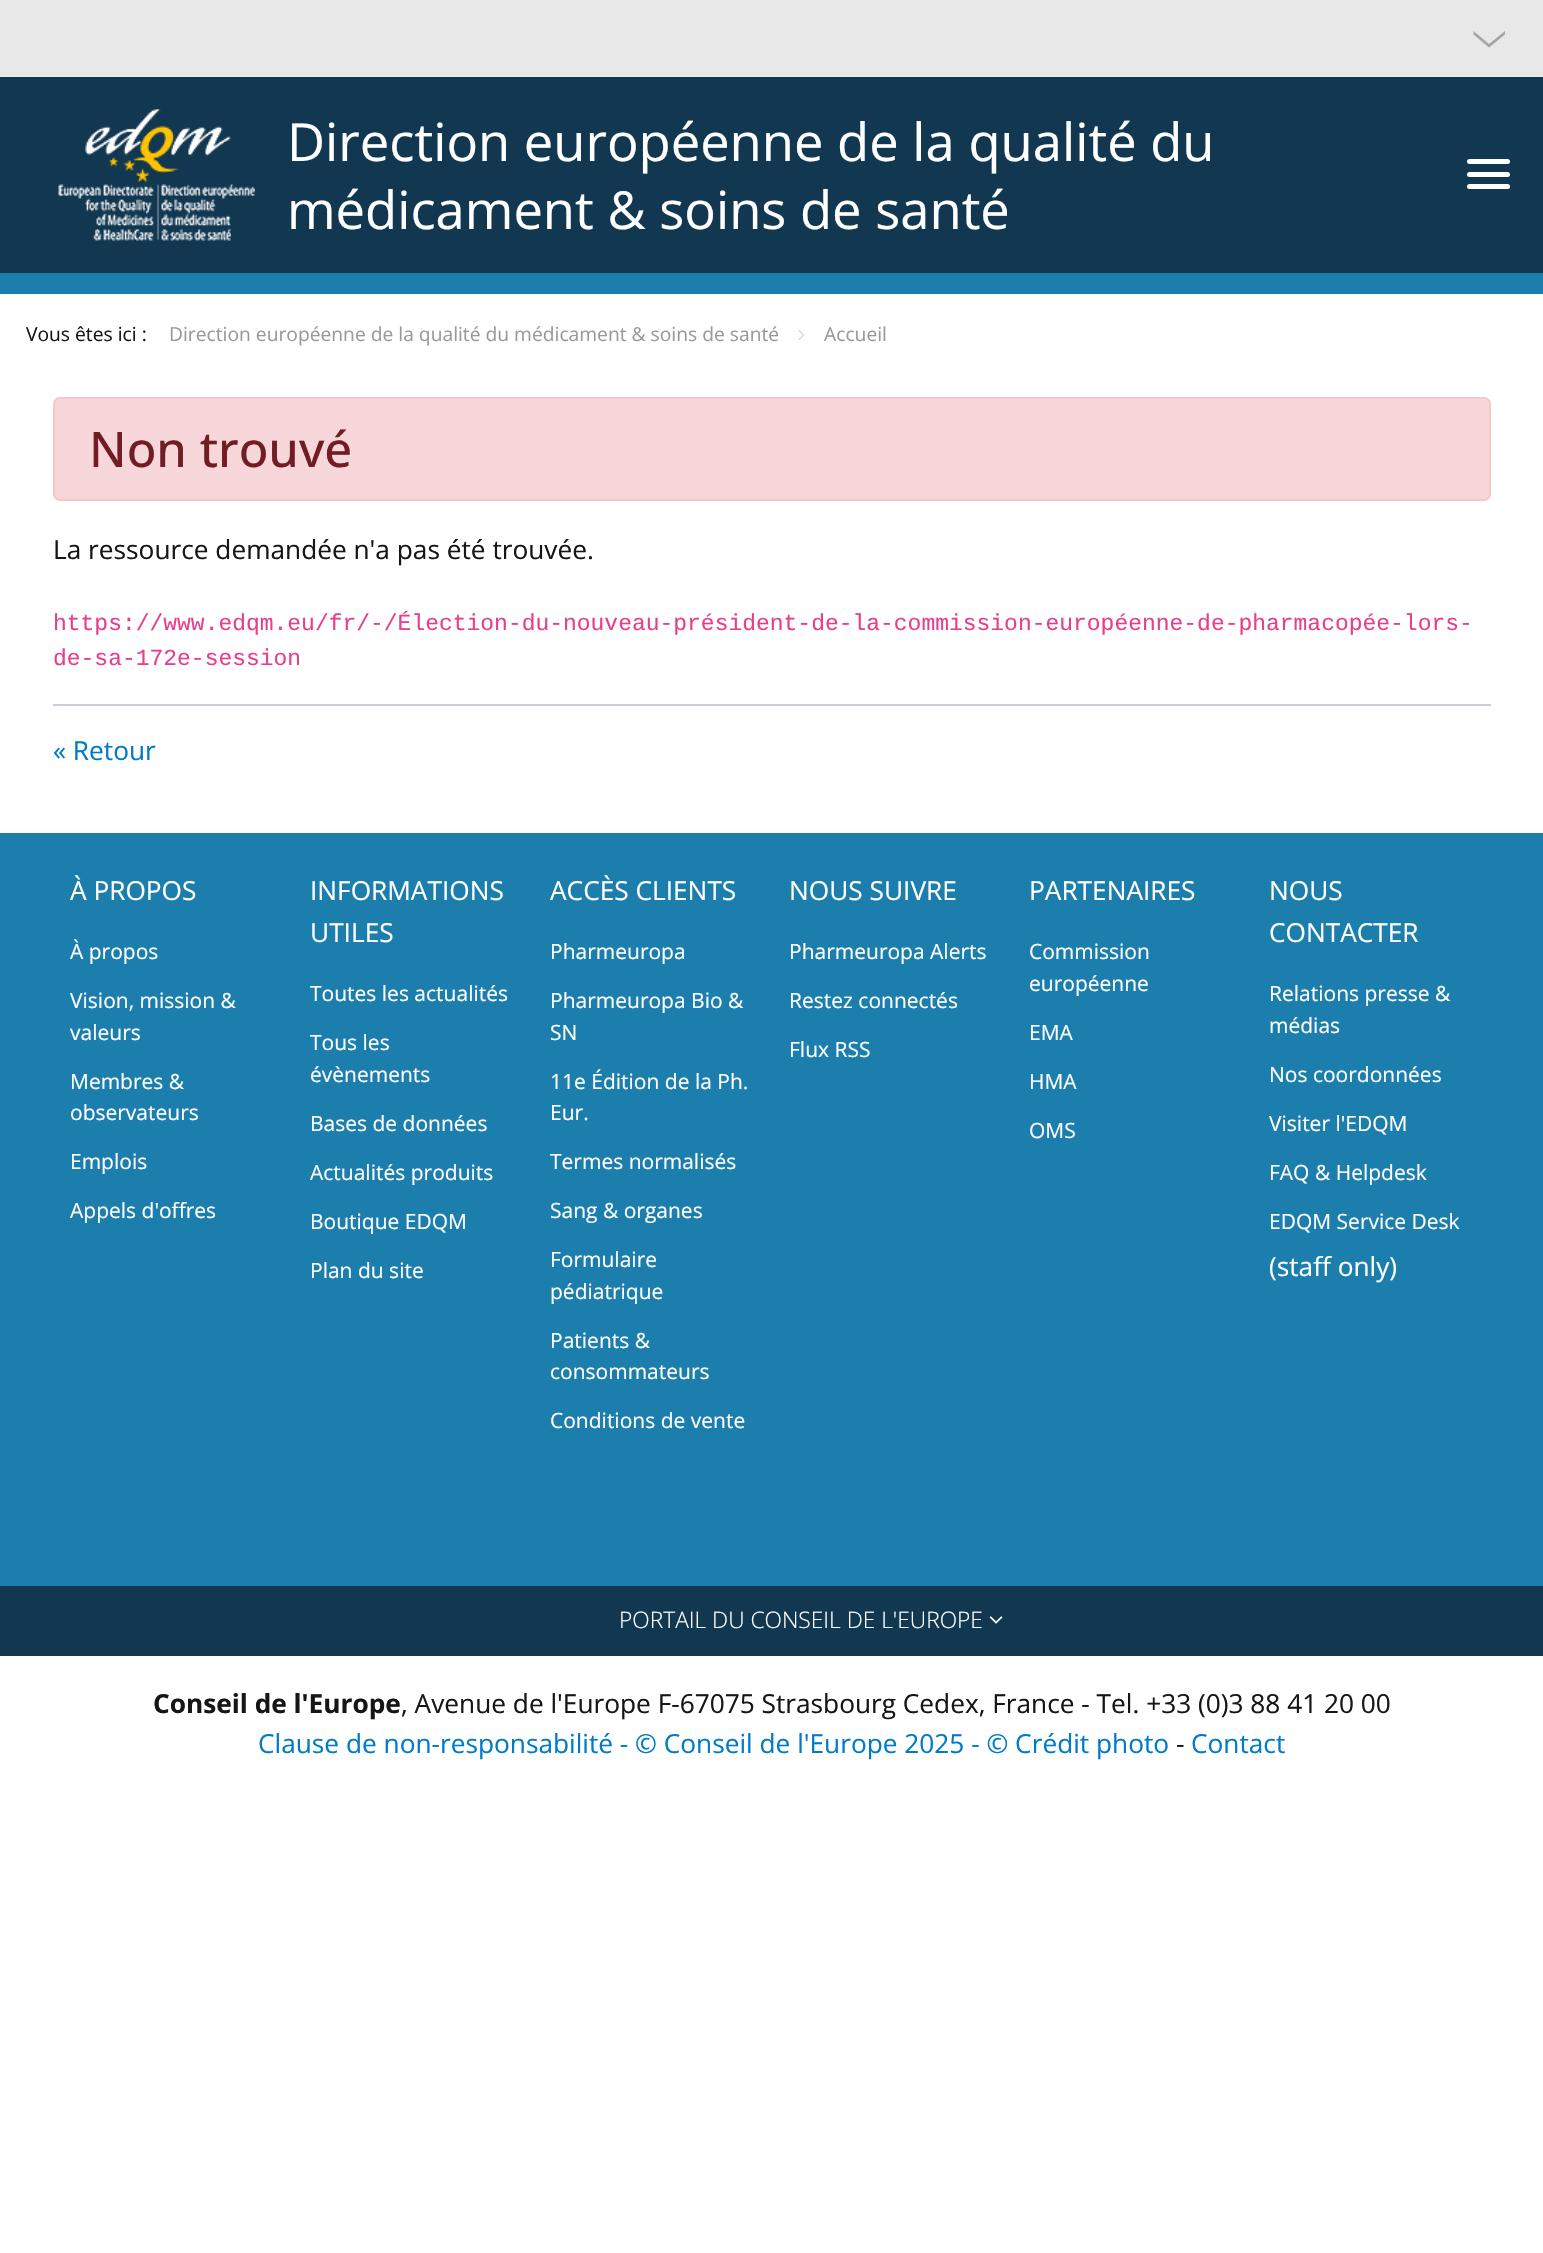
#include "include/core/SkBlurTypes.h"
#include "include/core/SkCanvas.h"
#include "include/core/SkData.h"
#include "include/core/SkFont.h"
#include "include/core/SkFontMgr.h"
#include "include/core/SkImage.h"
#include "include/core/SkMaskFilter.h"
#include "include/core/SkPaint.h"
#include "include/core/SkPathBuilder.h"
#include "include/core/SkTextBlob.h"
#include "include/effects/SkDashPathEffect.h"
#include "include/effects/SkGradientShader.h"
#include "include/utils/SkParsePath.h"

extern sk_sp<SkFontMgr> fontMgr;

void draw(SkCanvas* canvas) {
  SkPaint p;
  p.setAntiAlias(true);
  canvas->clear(SK_ColorWHITE);
  p.setColor(SkColorSetRGB(232, 232, 232));
  canvas->drawRect(SkRect::MakeLTRB(0, 0, 1543, 77), p);
  p.setColor(SkColorSetRGB(165, 165, 165));
  canvas->drawPath(SkPathBuilder().moveTo(1473.5f, 31).lineTo(1489, 44).lineTo(1489, 47.5f).lineTo(1473.5f, 34.5f).close().moveTo(1489, 44).lineTo(1505, 31).lineTo(1505, 34.5f).lineTo(1489, 47.5f).close().detach(), p);
  p.setColor(SkColorSetRGB(18, 55, 81));
  canvas->drawRect(SkRect::MakeLTRB(0, 77, 1543, 273), p);
  p.setColor(SkColorSetRGB(27, 126, 172));
  canvas->drawRect(SkRect::MakeLTRB(0, 273, 1543, 294), p);
  canvas->drawImageRect(SkImages::DeferredFromEncodedData(SkData::MakeFromFileName("images/1.png")), SkRect::MakeLTRB(58, 109, 255, 241), SkSamplingOptions());
  p.setColor(SK_ColorWHITE);
  canvas->drawRoundRect(SkRect::MakeLTRB(1467, 159, 1510, 164), 2.5f, 2.5f, p);
  canvas->drawRoundRect(SkRect::MakeLTRB(1467, 172, 1510, 177), 2.5f, 2.5f, p);
  canvas->drawRoundRect(SkRect::MakeLTRB(1467, 184, 1510, 189), 2.5f, 2.5f, p);
  canvas->drawImageRect(SkImages::DeferredFromEncodedData(SkData::MakeFromFileName("images/2.png")), SkRect::MakeLTRB(798, 330, 805, 341), SkSamplingOptions());
  p.setColor(SkColorSetRGB(248, 215, 218));
  canvas->drawRoundRect(SkRect::MakeLTRB(54, 398, 1490, 500), 6, 6, p);
  p.setStyle(SkPaint::kStroke_Style);
  p.setStrokeWidth(2);
  p.setColor(SkColorSetRGB(245, 198, 203));
  canvas->drawRoundRect(SkRect::MakeLTRB(54, 398, 1490, 500), 6, 6, p);
  p.setStyle(SkPaint::kFill_Style);
  p.setColor(SkColorSetRGB(205, 206, 217));
  canvas->drawRect(SkRect::MakeLTRB(53, 704, 1491, 706), p);
  p.setColor(SkColorSetRGB(27, 126, 172));
  canvas->drawRect(SkRect::MakeLTRB(0, 833, 1543, 1586), p);
  p.setColor(SkColorSetRGB(18, 55, 81));
  canvas->drawRect(SkRect::MakeLTRB(0, 1586, 1543, 1656), p);
  canvas->drawImageRect(SkImages::DeferredFromEncodedData(SkData::MakeFromFileName("images/3.png")), SkRect::MakeLTRB(989, 1616, 1003, 1624), SkSamplingOptions());
  SkFont font1(fontMgr->matchFamilyStyle("Open Sans", SkFontStyle::Normal()), 52.5f);
  font1.setSubpixel(true);
  p.setColor(SK_ColorWHITE);
  canvas->drawString("Direction européenne de la qualité du", 287, 161, font1, p);
  canvas->drawString("médicament & soins de santé", 287, 229, font1, p);
  SkFont font2(fontMgr->matchFamilyStyle("Open Sans", SkFontStyle::Normal()), 19.25f);
  font2.setSubpixel(true);
  p.setColor(SkColorSetRGB(22, 22, 22));
  canvas->drawString("Vous êtes ici :", 26, 341, font2, p);
  p.setColor(SkColorSetRGB(153, 153, 153));
  canvas->drawString("Direction européenne de la qualité du médicament & soins de santé", 169, 341, font2, p);
  canvas->drawString("Accueil", 824, 341, font2, p);
  SkFont font3(fontMgr->matchFamilyStyle("Open Sans", SkFontStyle(500, SkFontStyle::kNormal_Width, SkFontStyle::kUpright_Slant)), 49);
  font3.setSubpixel(true);
  p.setColor(SkColorSetRGB(114, 28, 36));
  canvas->drawString("Non trouvé", 89, 467, font3, p);
  SkFont font4(fontMgr->matchFamilyStyle("Open Sans", SkFontStyle::Normal()), 26.25f);
  font4.setSubpixel(true);
  p.setColor(SkColorSetRGB(22, 22, 22));
  canvas->drawString("La ressource demandée n'a pas été trouvée.", 53, 559, font4, p);
  SkFont font5(fontMgr->matchFamilyStyle("Liberation Mono", SkFontStyle::Normal()), 22.97f);
  font5.setSubpixel(true);
  p.setColor(SkColorSetRGB(232, 62, 140));
  canvas->drawString("https://www.edqm.eu/fr/-/Élection-du-nouveau-président-de-la-commission-européenne-de-pharmacopée-lors-", 53, 630, font5, p);
  canvas->drawString("de-sa-172e-session", 53, 665, font5, p);
  p.setColor(SkColorSetRGB(0, 123, 200));
  canvas->drawString("« Retour", 53, 760, font4, p);
  p.setColor(SK_ColorWHITE);
  canvas->drawString("À PROPOS", 70, 900, font4, p);
  SkFont font6(fontMgr->matchFamilyStyle("Open Sans", SkFontStyle::Normal()), 21);
  font6.setSubpixel(true);
  canvas->drawString("À propos", 70, 959, font6, p);
  canvas->drawString("Vision, mission &", 70, 1008, font6, p);
  canvas->drawString("valeurs", 70, 1040, font6, p);
  canvas->drawString("Membres &", 70, 1089, font6, p);
  canvas->drawString("observateurs", 70, 1120, font6, p);
  canvas->drawString("Emplois", 70, 1169, font6, p);
  canvas->drawString("Appels d'offres", 70, 1218, font6, p);
  canvas->drawString("INFORMATIONS", 310, 900, font4, p);
  canvas->drawString("UTILES", 310, 942, font4, p);
  canvas->drawString("Toutes les actualités", 310, 1001, font6, p);
  canvas->drawString("Tous les", 310, 1050, font6, p);
  canvas->drawString("évènements", 310, 1082, font6, p);
  canvas->drawString("Bases de données", 310, 1131, font6, p);
  canvas->drawString("Actualités produits", 310, 1180, font6, p);
  canvas->drawString("Boutique EDQM", 310, 1229, font6, p);
  canvas->drawString("Plan du site", 310, 1278, font6, p);
  canvas->drawString("ACCÈS CLIENTS", 550, 900, font4, p);
  canvas->drawString("Pharmeuropa", 550, 959, font6, p);
  canvas->drawString("Pharmeuropa Bio &", 550, 1008, font6, p);
  canvas->drawString("SN", 550, 1040, font6, p);
  canvas->drawString("11e Édition de la Ph.", 550, 1089, font6, p);
  canvas->drawString("Eur.", 550, 1120, font6, p);
  canvas->drawString("Termes normalisés", 550, 1169, font6, p);
  canvas->drawString("Sang & organes", 550, 1218, font6, p);
  canvas->drawString("Formulaire", 550, 1267, font6, p);
  canvas->drawString("pédiatrique", 550, 1299, font6, p);
  canvas->drawString("Patients &", 550, 1348, font6, p);
  canvas->drawString("consommateurs", 550, 1379, font6, p);
  canvas->drawString("Conditions de vente", 550, 1428, font6, p);
  canvas->drawString("NOUS SUIVRE", 789, 900, font4, p);
  canvas->drawString("Pharmeuropa Alerts", 789, 959, font6, p);
  canvas->drawString("Restez connectés", 789, 1008, font6, p);
  canvas->drawString("Flux RSS", 789, 1057, font6, p);
  canvas->drawString("PARTENAIRES", 1029, 900, font4, p);
  canvas->drawString("Commission", 1029, 959, font6, p);
  canvas->drawString("européenne", 1029, 991, font6, p);
  canvas->drawString("EMA", 1029, 1040, font6, p);
  canvas->drawString("HMA", 1029, 1089, font6, p);
  canvas->drawString("OMS", 1029, 1138, font6, p);
  canvas->drawString("NOUS", 1269, 900, font4, p);
  canvas->drawString("CONTACTER", 1269, 942, font4, p);
  canvas->drawString("Relations presse &", 1269, 1001, font6, p);
  canvas->drawString("médias", 1269, 1033, font6, p);
  canvas->drawString("Nos coordonnées", 1269, 1082, font6, p);
  canvas->drawString("Visiter l'EDQM", 1269, 1131, font6, p);
  canvas->drawString("FAQ & Helpdesk", 1269, 1180, font6, p);
  canvas->drawString("EDQM Service Desk", 1269, 1229, font6, p);
  canvas->drawString("(staff only)", 1269, 1276, font4, p);
  SkFont font7(fontMgr->matchFamilyStyle("Open Sans", SkFontStyle(300, SkFontStyle::kNormal_Width, SkFontStyle::kUpright_Slant)), 22.75f);
  font7.setSubpixel(true);
  canvas->drawString("PORTAIL DU CONSEIL DE L'EUROPE", 619, 1628, font7, p);
  SkFont font8(fontMgr->matchFamilyStyle("Open Sans", SkFontStyle::Bold()), 26.25f);
  font8.setSubpixel(true);
  p.setColor(SkColorSetRGB(22, 22, 22));
  canvas->drawString("Conseil de l'Europe", 153, 1713, font8, p);
  canvas->drawString(", Avenue de l'Europe F-67075 Strasbourg Cedex, France - Tel. +33 (0)3 88 41 20 00", 401, 1713, font4, p);
  p.setColor(SkColorSetRGB(0, 123, 200));
  canvas->drawString("Clause de non-responsabilité - © Conseil de l'Europe 2025 - © Crédit photo", 258, 1753, font4, p);
  p.setColor(SkColorSetRGB(22, 22, 22));
  canvas->drawString("-", 1176, 1753, font4, p);
  p.setColor(SkColorSetRGB(0, 123, 200));
  canvas->drawString("Contact", 1191, 1753, font4, p);
}
